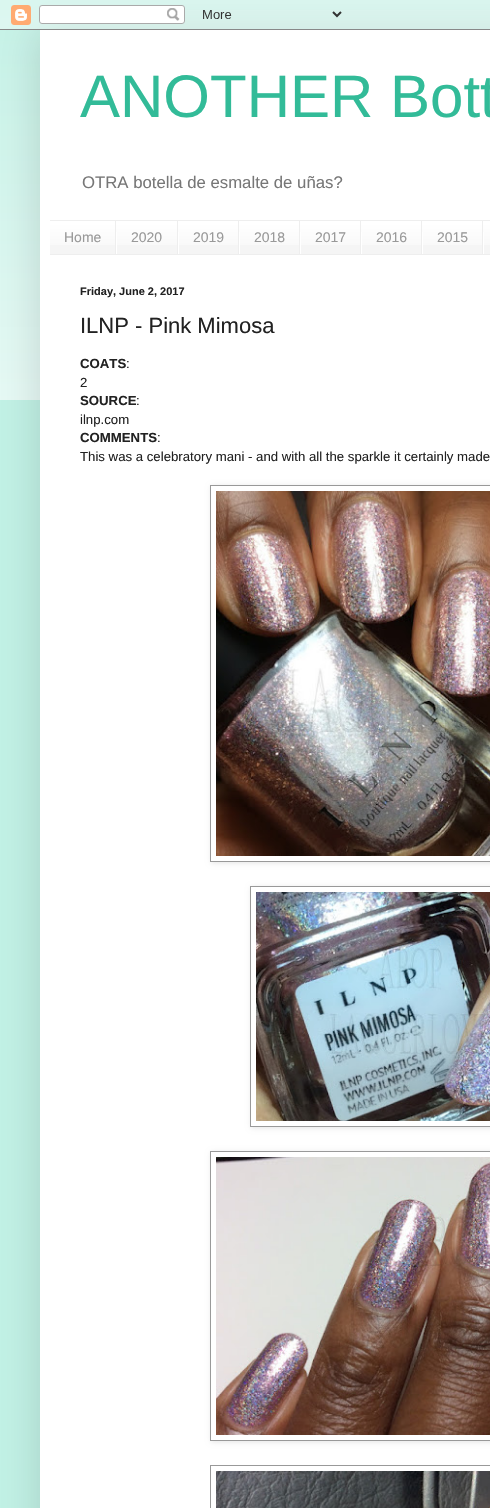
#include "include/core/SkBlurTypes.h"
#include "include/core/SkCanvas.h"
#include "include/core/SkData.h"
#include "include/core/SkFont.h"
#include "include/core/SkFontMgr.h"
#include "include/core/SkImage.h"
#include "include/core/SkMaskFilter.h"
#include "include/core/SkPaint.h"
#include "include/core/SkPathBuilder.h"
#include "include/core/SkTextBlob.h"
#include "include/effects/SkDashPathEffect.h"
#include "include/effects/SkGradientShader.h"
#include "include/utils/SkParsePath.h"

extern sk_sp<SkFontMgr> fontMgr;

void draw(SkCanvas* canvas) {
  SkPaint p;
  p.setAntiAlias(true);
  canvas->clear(SkColorSetRGB(194, 242, 230));
  canvas->drawImageRect(SkImages::DeferredFromEncodedData(SkData::MakeFromFileName("images/2.png")), SkRect::MakeLTRB(0, 10, 490, 400), SkSamplingOptions());
  p.setColor(SkColorSetARGB(38, 0, 0, 0));
  p.setMaskFilter(SkMaskFilter::MakeBlur(kNormal_SkBlurStyle, 20));
  canvas->drawRect(SkRect::MakeLTRB(40, 30, 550, 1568), p);
  p.setMaskFilter(nullptr);
  canvas->drawImageRect(SkImages::DeferredFromEncodedData(SkData::MakeFromFileName("images/1.png")), SkRect::MakeLTRB(0, 0, 490, 30), SkSamplingOptions());
  p.setColor(SK_ColorWHITE);
  canvas->drawRect(SkRect::MakeLTRB(40, 30, 490, 1508), p);
  p.setColor(SkColorSetRGB(245, 245, 245));
  canvas->drawRect(SkRect::MakeLTRB(50, 222, 490, 254), p);
  canvas->drawImageRect(SkImages::DeferredFromEncodedData(SkData::MakeFromFileName("images/3.png")), SkRect::MakeLTRB(50, 221, 490, 245), SkSamplingOptions());
  p.setColor(SkColorSetRGB(238, 238, 238));
  canvas->drawRect(SkRect::MakeLTRB(50, 220, 490, 221), p);
  canvas->drawRect(SkRect::MakeLTRB(50, 254, 490, 255), p);
  canvas->drawRect(SkRect::MakeLTRB(115, 221, 116, 254), p);
  canvas->drawRect(SkRect::MakeLTRB(177, 221, 178, 254), p);
  p.setColor(SK_ColorWHITE);
  canvas->drawRect(SkRect::MakeLTRB(116, 232, 117, 254), p);
  p.setColor(SkColorSetRGB(238, 238, 238));
  canvas->drawRect(SkRect::MakeLTRB(238, 221, 239, 254), p);
  p.setColor(SK_ColorWHITE);
  canvas->drawRect(SkRect::MakeLTRB(178, 232, 179, 254), p);
  p.setColor(SkColorSetRGB(238, 238, 238));
  canvas->drawRect(SkRect::MakeLTRB(299, 221, 300, 254), p);
  p.setColor(SK_ColorWHITE);
  canvas->drawRect(SkRect::MakeLTRB(239, 232, 240, 254), p);
  p.setColor(SkColorSetRGB(238, 238, 238));
  canvas->drawRect(SkRect::MakeLTRB(360, 221, 361, 254), p);
  p.setColor(SK_ColorWHITE);
  canvas->drawRect(SkRect::MakeLTRB(300, 232, 301, 254), p);
  p.setColor(SkColorSetRGB(238, 238, 238));
  canvas->drawRect(SkRect::MakeLTRB(421, 221, 422, 254), p);
  p.setColor(SK_ColorWHITE);
  canvas->drawRect(SkRect::MakeLTRB(361, 232, 362, 254), p);
  p.setColor(SkColorSetRGB(238, 238, 238));
  canvas->drawRect(SkRect::MakeLTRB(482, 221, 483, 254), p);
  p.setColor(SK_ColorWHITE);
  canvas->drawRect(SkRect::MakeLTRB(422, 232, 423, 254), p);
  canvas->drawRect(SkRect::MakeLTRB(483, 232, 484, 254), p);
  canvas->save();
  canvas->clipPath(SkPathBuilder(SkPathFillType::kEvenOdd).moveTo(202, 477).lineTo(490, 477).lineTo(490, 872).lineTo(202, 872).close().moveTo(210, 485).lineTo(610, 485).lineTo(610, 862).lineTo(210, 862).close().detach(), true);
  p.setColor(SkColorSetARGB(26, 0, 0, 0));
  p.setMaskFilter(SkMaskFilter::MakeBlur(kNormal_SkBlurStyle, 2.5f));
  canvas->drawRect(SkRect::MakeLTRB(211, 486, 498, 863), p);
  p.setMaskFilter(nullptr);
  canvas->restore();
  p.setStyle(SkPaint::kStroke_Style);
  p.setStrokeWidth(1);
  p.setColor(SkColorSetRGB(153, 153, 153));
  canvas->drawRect(SkRect::MakeLTRB(210.5f, 485.5f, 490.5f, 861.5f), p);
  canvas->drawImageRect(SkImages::DeferredFromEncodedData(SkData::MakeFromFileName("images/4.png")), SkRect::MakeLTRB(216, 491, 490, 856), SkSamplingOptions());
  canvas->save();
  canvas->clipPath(SkPathBuilder(SkPathFillType::kEvenOdd).moveTo(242, 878).lineTo(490, 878).lineTo(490, 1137).lineTo(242, 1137).close().moveTo(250, 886).lineTo(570, 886).lineTo(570, 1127).lineTo(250, 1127).close().detach(), true);
  p.setStyle(SkPaint::kFill_Style);
  p.setColor(SkColorSetARGB(26, 0, 0, 0));
  p.setMaskFilter(SkMaskFilter::MakeBlur(kNormal_SkBlurStyle, 2.5f));
  canvas->drawRect(SkRect::MakeLTRB(251, 887, 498, 1128), p);
  p.setMaskFilter(nullptr);
  canvas->restore();
  p.setStyle(SkPaint::kStroke_Style);
  p.setColor(SkColorSetRGB(153, 153, 153));
  canvas->drawRect(SkRect::MakeLTRB(250.5f, 886.5f, 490.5f, 1126.5f), p);
  canvas->drawImageRect(SkImages::DeferredFromEncodedData(SkData::MakeFromFileName("images/5.png")), SkRect::MakeLTRB(256, 892, 490, 1121), SkSamplingOptions());
  canvas->save();
  canvas->clipPath(SkPathBuilder(SkPathFillType::kEvenOdd).moveTo(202, 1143).lineTo(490, 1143).lineTo(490, 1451).lineTo(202, 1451).close().moveTo(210, 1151).lineTo(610, 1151).lineTo(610, 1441).lineTo(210, 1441).close().detach(), true);
  p.setStyle(SkPaint::kFill_Style);
  p.setColor(SkColorSetARGB(26, 0, 0, 0));
  p.setMaskFilter(SkMaskFilter::MakeBlur(kNormal_SkBlurStyle, 2.5f));
  canvas->drawRect(SkRect::MakeLTRB(211, 1152, 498, 1442), p);
  p.setMaskFilter(nullptr);
  canvas->restore();
  p.setStyle(SkPaint::kStroke_Style);
  p.setColor(SkColorSetRGB(153, 153, 153));
  canvas->drawRect(SkRect::MakeLTRB(210.5f, 1151.5f, 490.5f, 1440.5f), p);
  canvas->drawImageRect(SkImages::DeferredFromEncodedData(SkData::MakeFromFileName("images/6.png")), SkRect::MakeLTRB(216, 1157, 490, 1435), SkSamplingOptions());
  canvas->drawRect(SkRect::MakeLTRB(210.5f, 1465.5f, 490.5f, 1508.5f), p);
  canvas->drawImageRect(SkImages::DeferredFromEncodedData(SkData::MakeFromFileName("images/7.png")), SkRect::MakeLTRB(216, 1471, 490, 1508), SkSamplingOptions());
  SkFont font1(fontMgr->matchFamilyStyle("Liberation Sans", SkFontStyle::Normal()), 60);
  font1.setSubpixel(true);
  p.setStyle(SkPaint::kFill_Style);
  p.setColor(SkColorSetRGB(50, 187, 152));
  canvas->drawString("ANOTHER Bott", 80, 117, font1, p);
  SkFont font2(fontMgr->matchFamilyStyle("Liberation Sans", SkFontStyle::Normal()), 16.75f);
  font2.setSubpixel(true);
  p.setColor(SkColorSetRGB(119, 119, 119));
  canvas->drawString("OTRA botella de esmalte de uñas?", 82, 188, font2, p);
  SkFont font3(fontMgr->matchFamilyStyle("Liberation Sans", SkFontStyle::Normal()), 14);
  font3.setSubpixel(true);
  p.setColor(SkColorSetRGB(153, 153, 153));
  canvas->drawString("Home", 64, 242, font3, p);
  canvas->drawString("2020", 131, 242, font3, p);
  canvas->drawString("2019", 193, 242, font3, p);
  canvas->drawString("2018", 254, 242, font3, p);
  canvas->drawString("2017", 315, 242, font3, p);
  canvas->drawString("2016", 376, 242, font3, p);
  canvas->drawString("2015", 437, 242, font3, p);
  SkFont font4(fontMgr->matchFamilyStyle("Liberation Sans", SkFontStyle::Bold()), 11);
  font4.setSubpixel(true);
  p.setColor(SkColorSetRGB(34, 34, 34));
  canvas->drawString("Friday, June 2, 2017", 80, 295, font4, p);
  SkFont font5(fontMgr->matchFamilyStyle("Liberation Sans", SkFontStyle::Normal()), 22);
  font5.setSubpixel(true);
  canvas->drawString("ILNP - Pink Mimosa", 80, 333, font5, p);
  SkFont font6(fontMgr->matchFamilyStyle("Liberation Sans", SkFontStyle::Bold()), 13.2f);
  font6.setSubpixel(true);
  canvas->drawString("COATS", 80, 368, font6, p);
  SkFont font7(fontMgr->matchFamilyStyle("Liberation Sans", SkFontStyle::Normal()), 13.2f);
  font7.setSubpixel(true);
  canvas->drawString(":", 126, 368, font7, p);
  canvas->drawString("2", 80, 387, font7, p);
  canvas->drawString("SOURCE", 80, 405, font6, p);
  canvas->drawString(":", 136, 405, font7, p);
  canvas->drawString("ilnp.com", 80, 424, font7, p);
  canvas->drawString("COMMENTS", 80, 442, font6, p);
  canvas->drawString(":", 157, 442, font7, p);
  canvas->drawString("This was a celebratory mani - and with all the sparkle it certainly made", 80, 461, font7, p);
}
